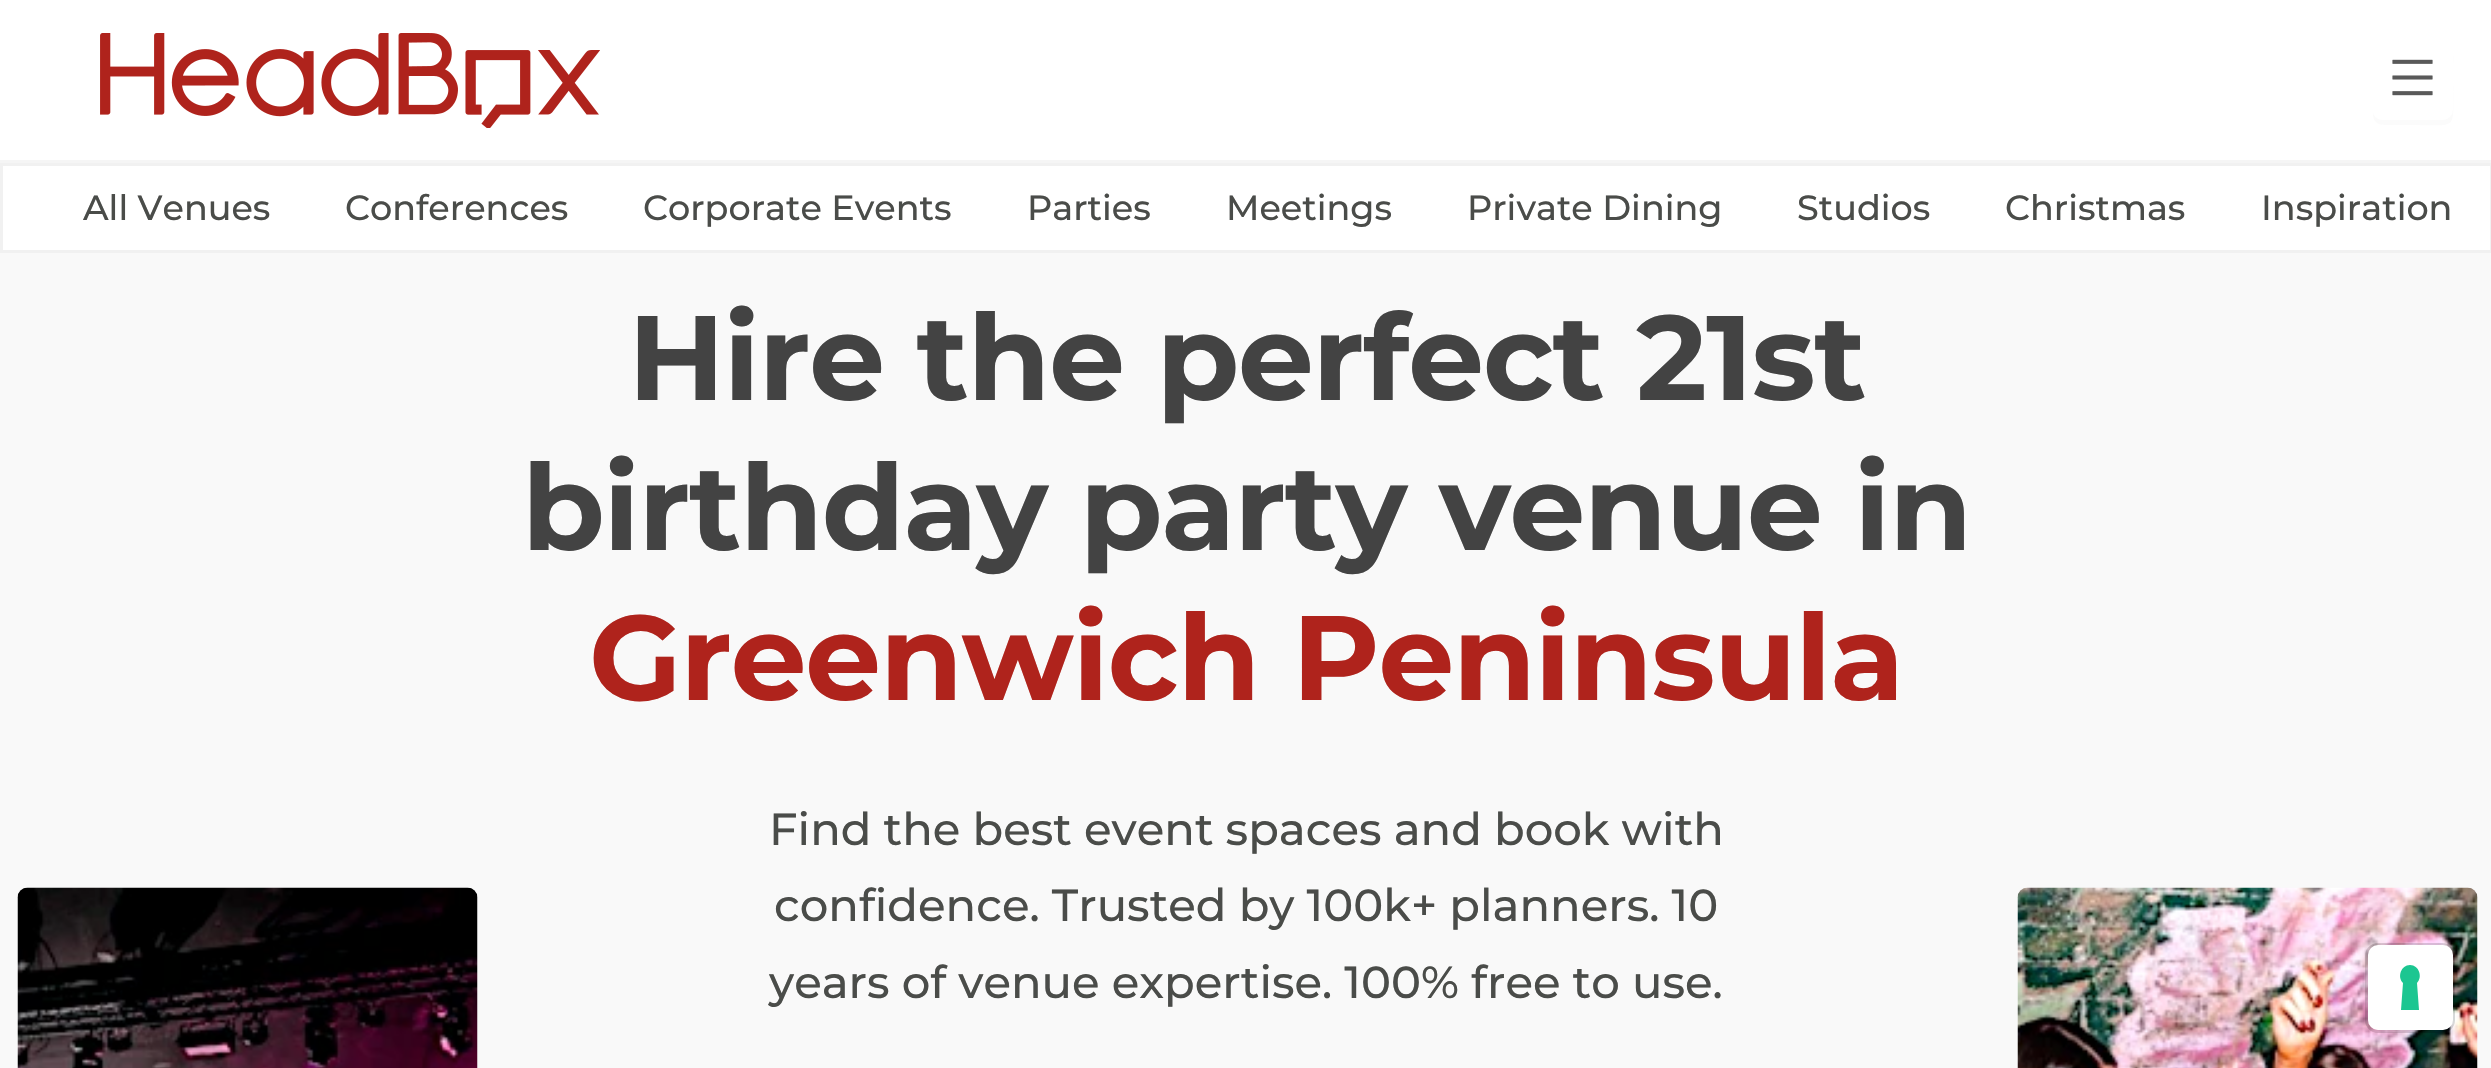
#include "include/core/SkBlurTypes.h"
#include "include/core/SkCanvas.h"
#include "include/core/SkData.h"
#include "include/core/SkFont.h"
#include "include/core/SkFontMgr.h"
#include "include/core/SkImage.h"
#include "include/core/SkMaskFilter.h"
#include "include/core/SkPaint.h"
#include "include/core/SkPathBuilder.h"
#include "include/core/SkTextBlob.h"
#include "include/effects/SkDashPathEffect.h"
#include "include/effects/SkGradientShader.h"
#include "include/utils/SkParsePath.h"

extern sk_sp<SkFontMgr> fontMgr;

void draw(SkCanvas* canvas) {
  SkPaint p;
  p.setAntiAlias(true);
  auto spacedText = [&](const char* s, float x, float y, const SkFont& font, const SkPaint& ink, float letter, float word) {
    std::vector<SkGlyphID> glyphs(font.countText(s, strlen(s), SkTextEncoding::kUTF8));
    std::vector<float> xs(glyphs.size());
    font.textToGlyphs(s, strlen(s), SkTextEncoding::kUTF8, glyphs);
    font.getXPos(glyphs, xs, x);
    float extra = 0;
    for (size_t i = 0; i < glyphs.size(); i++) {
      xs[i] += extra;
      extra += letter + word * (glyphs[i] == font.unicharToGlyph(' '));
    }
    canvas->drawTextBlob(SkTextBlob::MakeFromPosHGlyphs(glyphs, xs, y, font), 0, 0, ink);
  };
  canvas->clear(SkColorSetRGB(249, 249, 249));
  p.setColor(SK_ColorWHITE);
  canvas->drawRect(SkRect::MakeLTRB(0, 0, 2491, 160), p);
  p.setColor(SkColorSetRGB(245, 245, 245));
  canvas->drawRect(SkRect::MakeLTRB(0, 160, 2491, 163), p);
  canvas->drawImageRect(SkImages::DeferredFromEncodedData(SkData::MakeFromFileName("images/1.png")), SkRect::MakeLTRB(100, 33, 600, 128), SkSamplingOptions());
  p.setColor(SkColorSetRGB(251, 251, 251));
  canvas->drawPath(SkPathBuilder().moveTo(2373, 113).cubicTo(2373, 126, 2383, 125, 2393, 125).lineTo(2413, 125).cubicTo(2459, 125, 2453, 131, 2453, 85).lineTo(2453, 65).cubicTo(2453, 62, 2454, 56, 2452, 52).lineTo(2452, 110).cubicTo(2452, 116, 2448, 120, 2442, 120).lineTo(2382, 120).cubicTo(2378, 120, 2374, 117, 2373, 113).close().detach(), p);
  p.setColor(SK_ColorWHITE);
  canvas->drawRoundRect(SkRect::MakeLTRB(2373, 40, 2453, 120), 10, 10, p);
  canvas->drawImageRect(SkImages::DeferredFromEncodedData(SkData::MakeFromFileName("images/2.png")), SkRect::MakeLTRB(2392, 59, 2433, 96), SkSamplingOptions());
  canvas->drawRect(SkRect::MakeLTRB(1.5f, 164.5f, 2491.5f, 251.5f), p);
  p.setStyle(SkPaint::kStroke_Style);
  p.setStrokeWidth(3);
  p.setColor(SkColorSetRGB(241, 241, 241));
  canvas->drawRect(SkRect::MakeLTRB(1.5f, 164.5f, 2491.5f, 251.5f), p);
  canvas->drawImageRect(SkImages::DeferredFromEncodedData(SkData::MakeFromFileName("images/3.png")), SkRect::MakeLTRB(17, 887, 478, 1068), SkSamplingOptions());
  canvas->drawImageRect(SkImages::DeferredFromEncodedData(SkData::MakeFromFileName("images/4.png")), SkRect::MakeLTRB(2017, 887, 2478, 1068), SkSamplingOptions());
  p.setColor(SkColorSetARGB(38, 0, 0, 0));
  canvas->drawRoundRect(SkRect::MakeLTRB(2366.5f, 944.5f, 2453.5f, 1031.5f), 11.5f, 11.5f, p);
  p.setStyle(SkPaint::kFill_Style);
  p.setColor(SK_ColorWHITE);
  canvas->drawRoundRect(SkRect::MakeLTRB(2368, 945, 2453, 1030), 10, 10, p);
  p.setColor(SkColorSetRGB(28, 198, 145));
  canvas->drawPath(SkPathBuilder(SkPathFillType::kEvenOdd).moveTo(2410, 965).cubicTo(2419, 965, 2423, 977, 2417, 983).lineTo(2419, 1010).lineTo(2401, 1010).lineTo(2403, 983).cubicTo(2397, 977, 2401, 965, 2410, 965).close().detach(), p);
  SkFont font1(fontMgr->matchFamilyStyle("Montserrat", SkFontStyle(500, SkFontStyle::kNormal_Width, SkFontStyle::kUpright_Slant)), 35);
  font1.setSubpixel(true);
  p.setColor(SkColorSetRGB(74, 76, 73));
  canvas->drawString("All Venues", 83, 220, font1, p);
  canvas->drawString("Conferences", 345, 220, font1, p);
  canvas->drawString("Corporate Events", 643, 220, font1, p);
  canvas->drawString("Parties", 1027, 220, font1, p);
  canvas->drawString("Meetings", 1226, 220, font1, p);
  canvas->drawString("Private Dining", 1467, 220, font1, p);
  canvas->drawString("Studios", 1797, 220, font1, p);
  canvas->drawString("Christmas", 2005, 220, font1, p);
  canvas->drawString("Inspiration", 2261, 220, font1, p);
  SkFont font2(fontMgr->matchFamilyStyle("Montserrat", SkFontStyle::Bold()), 120);
  font2.setSubpixel(true);
  p.setColor(SkColorSetRGB(67, 67, 67));
  spacedText("Hire the perfect 21st", 628, 400, font2, p, -1.2f, 0);
  spacedText("birthday party venue in", 522, 550, font2, p, -1.2f, 0);
  p.setColor(SkColorSetRGB(175, 35, 28));
  spacedText("Greenwich Peninsula", 589, 700, font2, p, -1.2f, 0);
  SkFont font3(fontMgr->matchFamilyStyle("Montserrat", SkFontStyle(500, SkFontStyle::kNormal_Width, SkFontStyle::kUpright_Slant)), 45);
  font3.setSubpixel(true);
  p.setColor(SkColorSetRGB(74, 76, 73));
  canvas->drawString("Find the best event spaces and book with", 769, 845, font3, p);
  canvas->drawString("confidence. Trusted by 100k+ planners. 10", 774, 921, font3, p);
  canvas->drawString("years of venue expertise. 100% free to use.", 769, 998, font3, p);
}
